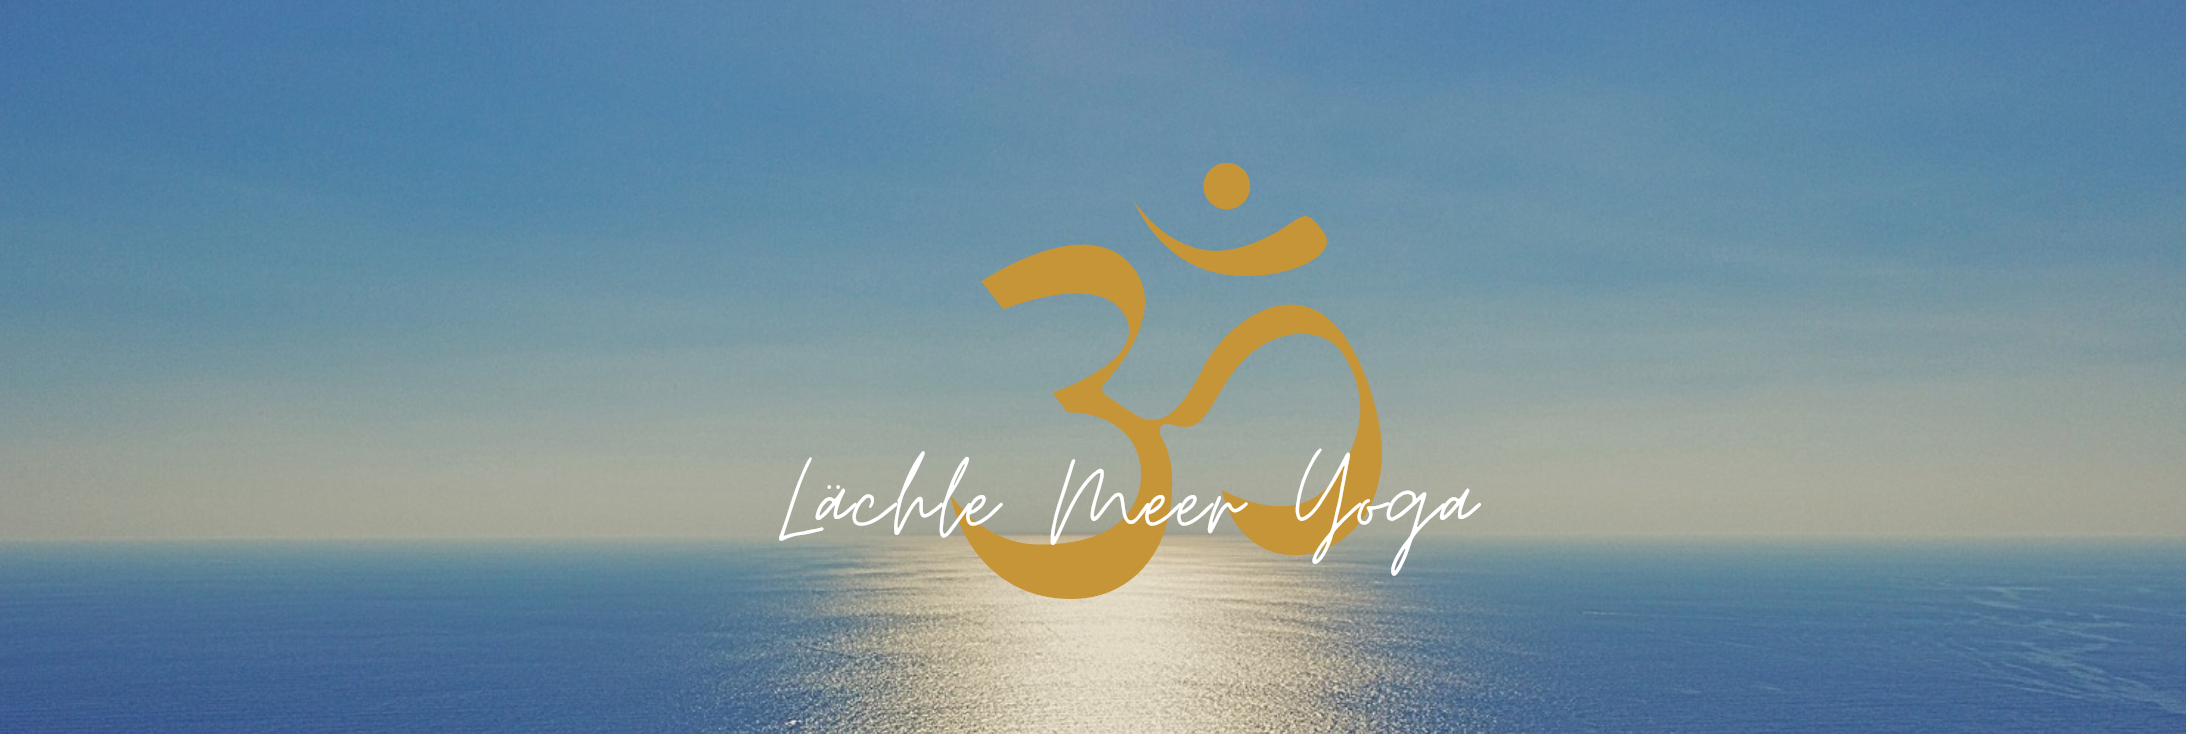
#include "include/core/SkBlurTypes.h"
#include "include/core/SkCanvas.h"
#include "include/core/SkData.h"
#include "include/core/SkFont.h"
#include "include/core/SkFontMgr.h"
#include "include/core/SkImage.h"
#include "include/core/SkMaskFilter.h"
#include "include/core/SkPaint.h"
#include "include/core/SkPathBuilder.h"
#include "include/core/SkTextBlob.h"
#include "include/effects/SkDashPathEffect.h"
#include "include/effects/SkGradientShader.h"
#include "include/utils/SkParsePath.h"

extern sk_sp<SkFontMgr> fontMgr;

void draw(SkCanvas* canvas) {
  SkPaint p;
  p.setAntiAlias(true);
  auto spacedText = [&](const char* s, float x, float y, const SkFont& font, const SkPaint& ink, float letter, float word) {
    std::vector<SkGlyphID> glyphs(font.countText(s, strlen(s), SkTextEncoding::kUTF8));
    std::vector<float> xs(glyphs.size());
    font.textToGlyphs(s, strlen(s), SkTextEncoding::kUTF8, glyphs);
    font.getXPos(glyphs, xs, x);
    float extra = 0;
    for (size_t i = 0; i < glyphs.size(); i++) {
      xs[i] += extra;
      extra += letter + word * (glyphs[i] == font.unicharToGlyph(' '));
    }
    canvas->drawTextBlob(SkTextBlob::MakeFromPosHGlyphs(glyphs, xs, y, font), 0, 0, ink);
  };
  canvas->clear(SK_ColorWHITE);
  canvas->drawImageRect(SkImages::DeferredFromEncodedData(SkData::MakeFromFileName("images/1.png")), SkRect::MakeLTRB(0, 0, 2186, 734), SkSamplingOptions());
  canvas->drawImageRect(SkImages::DeferredFromEncodedData(SkData::MakeFromFileName("images/2.png")), SkRect::MakeLTRB(950, 162, 1382, 599), SkSamplingOptions());
  SkFont font1(fontMgr->matchFamilyStyle("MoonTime", SkFontStyle::Normal()), 126.5f);
  font1.setSubpixel(true);
  p.setColor(SK_ColorWHITE);
  spacedText("Lächle Meer Yoga", 779, 531, font1, p, 3.2f, 0);
}
